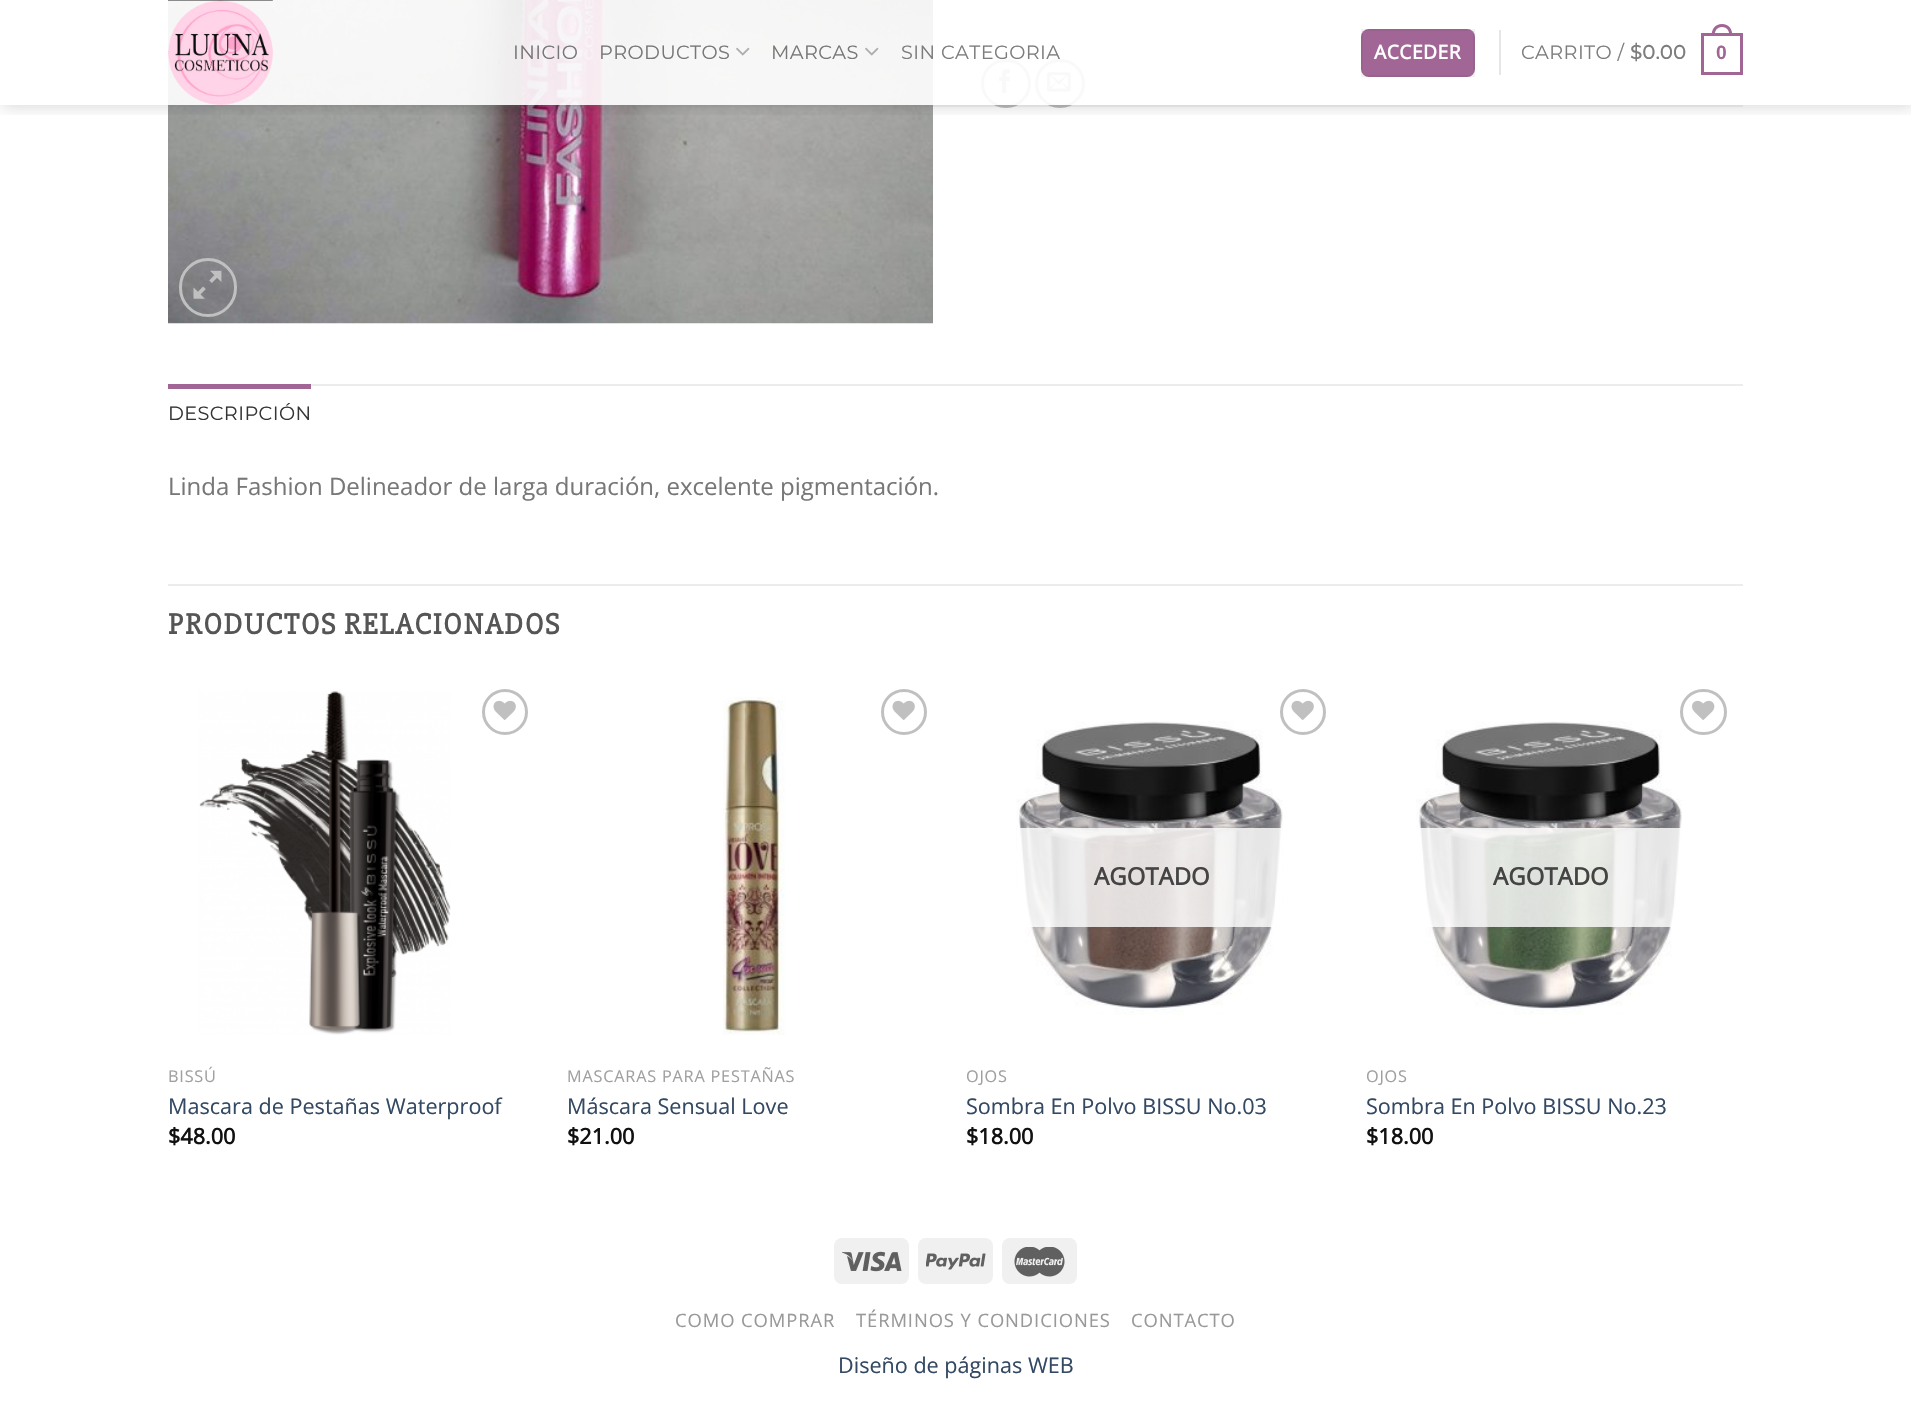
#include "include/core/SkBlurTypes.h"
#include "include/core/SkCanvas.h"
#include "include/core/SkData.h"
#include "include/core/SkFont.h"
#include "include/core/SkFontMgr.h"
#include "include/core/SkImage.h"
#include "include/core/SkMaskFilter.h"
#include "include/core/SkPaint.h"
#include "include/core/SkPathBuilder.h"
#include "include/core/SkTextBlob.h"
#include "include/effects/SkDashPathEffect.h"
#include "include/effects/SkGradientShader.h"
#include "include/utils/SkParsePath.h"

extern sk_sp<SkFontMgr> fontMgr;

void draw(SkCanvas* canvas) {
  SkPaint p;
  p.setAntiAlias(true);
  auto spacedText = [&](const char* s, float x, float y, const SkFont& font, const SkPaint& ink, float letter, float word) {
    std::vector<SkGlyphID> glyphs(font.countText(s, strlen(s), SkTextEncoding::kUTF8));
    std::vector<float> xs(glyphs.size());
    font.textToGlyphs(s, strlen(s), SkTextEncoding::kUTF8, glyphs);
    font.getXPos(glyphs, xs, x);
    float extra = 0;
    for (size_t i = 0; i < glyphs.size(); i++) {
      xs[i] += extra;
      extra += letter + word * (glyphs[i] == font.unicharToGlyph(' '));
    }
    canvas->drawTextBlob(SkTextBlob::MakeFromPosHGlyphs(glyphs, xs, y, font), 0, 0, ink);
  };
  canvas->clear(SK_ColorWHITE);
  canvas->drawImageRect(SkImages::DeferredFromEncodedData(SkData::MakeFromFileName("images/4.png")), SkRect::MakeLTRB(168, 0, 933, 324), SkSamplingOptions());
  p.setStyle(SkPaint::kStroke_Style);
  p.setStrokeWidth(3);
  p.setColor(SkColorSetRGB(192, 192, 192));
  canvas->drawRoundRect(SkRect::MakeLTRB(982.5f, 60.5f, 1029.5f, 106.5f), 23, 23, p);
  canvas->drawImageRect(SkImages::DeferredFromEncodedData(SkData::MakeFromFileName("images/6.png")), SkRect::MakeLTRB(999, 69, 1010, 93), SkSamplingOptions());
  canvas->drawRoundRect(SkRect::MakeLTRB(1036.5f, 60.5f, 1083.5f, 106.5f), 23, 23, p);
  canvas->drawImageRect(SkImages::DeferredFromEncodedData(SkData::MakeFromFileName("images/7.png")), SkRect::MakeLTRB(1047, 72, 1071, 92), SkSamplingOptions());
  canvas->save();
  canvas->clipRect(SkRect::MakeLTRB(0, 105, 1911, 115));
  p.setStyle(SkPaint::kFill_Style);
  p.setColor(SkColorSetARGB(38, 0, 0, 0));
  p.setMaskFilter(SkMaskFilter::MakeBlur(kNormal_SkBlurStyle, 7.5f));
  canvas->drawRect(SkRect::MakeLTRB(2, 2, 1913, 107), p);
  p.setMaskFilter(nullptr);
  canvas->restore();
  p.setColor(SkColorSetARGB(230, 255, 255, 255));
  canvas->drawRect(SkRect::MakeLTRB(168, 0, 1085, 105), p);
  canvas->drawImageRect(SkImages::DeferredFromEncodedData(SkData::MakeFromFileName("images/1.png")), SkRect::MakeLTRB(168, 0, 273, 105), SkSamplingOptions());
  canvas->drawImageRect(SkImages::DeferredFromEncodedData(SkData::MakeFromFileName("images/2.png")), SkRect::MakeLTRB(736, 47, 750, 56), SkSamplingOptions());
  canvas->drawImageRect(SkImages::DeferredFromEncodedData(SkData::MakeFromFileName("images/3.png")), SkRect::MakeLTRB(865, 47, 879, 56), SkSamplingOptions());
  p.setColor(SkColorSetRGB(161, 102, 149));
  canvas->drawRoundRect(SkRect::MakeLTRB(1361, 29, 1475, 77), 8, 8, p);
  p.setStyle(SkPaint::kStroke_Style);
  p.setStrokeWidth(2);
  p.setColor(SkColorSetARGB(13, 0, 0, 0));
  canvas->drawRect(SkRect::MakeLTRB(1362, 30, 1474, 76), p);
  p.setStyle(SkPaint::kFill_Style);
  p.setColor(SkColorSetRGB(230, 230, 230));
  canvas->drawRect(SkRect::MakeLTRB(1499, 30, 1501, 75), p);
  p.setStyle(SkPaint::kStroke_Style);
  p.setStrokeWidth(3);
  p.setColor(SkColorSetRGB(161, 102, 149));
  canvas->drawRect(SkRect::MakeLTRB(1702.5f, 34.5f, 1741.5f, 73.5f), p);
  p.setStyle(SkPaint::kFill_Style);
  canvas->drawPath(SkPathBuilder(SkPathFillType::kEvenOdd).moveTo(1722, 24).cubicTo(1729, 24, 1732.5f, 29.5f, 1732.5f, 36).lineTo(1711.5f, 36).cubicTo(1711.5f, 29.5f, 1715, 24, 1722, 24).close().moveTo(1722, 27).cubicTo(1727.5f, 27, 1729.5f, 31.5f, 1729.5f, 36).lineTo(1714.5f, 36).cubicTo(1714.5f, 31.5f, 1716.5f, 27, 1722, 27).close().detach(), p);
  p.setColor(SkColorSetARGB(26, 119, 119, 119));
  canvas->drawRect(SkRect::MakeLTRB(168, 105, 1743, 107), p);
  p.setStyle(SkPaint::kStroke_Style);
  p.setColor(SkColorSetRGB(192, 192, 192));
  canvas->drawRoundRect(SkRect::MakeLTRB(180.5f, 259.5f, 235.5f, 315.5f), 27.5f, 27.5f, p);
  canvas->drawImageRect(SkImages::DeferredFromEncodedData(SkData::MakeFromFileName("images/5.png")), SkRect::MakeLTRB(193, 270, 222, 299), SkSamplingOptions());
  p.setStyle(SkPaint::kFill_Style);
  p.setColor(SkColorSetRGB(236, 236, 236));
  canvas->drawRect(SkRect::MakeLTRB(311, 384, 1743, 386), p);
  p.setColor(SkColorSetRGB(161, 102, 149));
  canvas->drawRect(SkRect::MakeLTRB(168, 384, 311, 389), p);
  p.setColor(SkColorSetRGB(236, 236, 236));
  canvas->drawRect(SkRect::MakeLTRB(168, 584, 1743, 586), p);
  canvas->drawImageRect(SkImages::DeferredFromEncodedData(SkData::MakeFromFileName("images/8.png")), SkRect::MakeLTRB(199, 691, 451, 1035), SkSamplingOptions());
  p.setStyle(SkPaint::kStroke_Style);
  p.setColor(SkColorSetRGB(192, 192, 192));
  canvas->drawCircle(505, 712, 21.5f, p);
  canvas->drawImageRect(SkImages::DeferredFromEncodedData(SkData::MakeFromFileName("images/9.png")), SkRect::MakeLTRB(493, 700, 516, 720), SkSamplingOptions());
  canvas->drawImageRect(SkImages::DeferredFromEncodedData(SkData::MakeFromFileName("images/10.png")), SkRect::MakeLTRB(723, 697, 785, 1035), SkSamplingOptions());
  canvas->drawCircle(904, 712, 21.5f, p);
  canvas->drawImageRect(SkImages::DeferredFromEncodedData(SkData::MakeFromFileName("images/9.png")), SkRect::MakeLTRB(892, 700, 915, 720), SkSamplingOptions());
  canvas->drawImageRect(SkImages::DeferredFromEncodedData(SkData::MakeFromFileName("images/11.png")), SkRect::MakeLTRB(1016, 721, 1283, 1015), SkSamplingOptions());
  canvas->drawCircle(1303, 712, 21.5f, p);
  canvas->drawImageRect(SkImages::DeferredFromEncodedData(SkData::MakeFromFileName("images/9.png")), SkRect::MakeLTRB(1291, 700, 1314, 720), SkSamplingOptions());
  p.setStyle(SkPaint::kFill_Style);
  p.setColor(SkColorSetARGB(207, 255, 255, 255));
  canvas->drawRect(SkRect::MakeLTRB(1017, 828, 1282, 927), p);
  canvas->drawImageRect(SkImages::DeferredFromEncodedData(SkData::MakeFromFileName("images/13.png")), SkRect::MakeLTRB(1416, 721, 1682, 1015), SkSamplingOptions());
  p.setStyle(SkPaint::kStroke_Style);
  p.setColor(SkColorSetRGB(192, 192, 192));
  canvas->drawRoundRect(SkRect::MakeLTRB(1681.5f, 690.5f, 1725.5f, 733.5f), 21.5f, 21.5f, p);
  canvas->drawImageRect(SkImages::DeferredFromEncodedData(SkData::MakeFromFileName("images/12.png")), SkRect::MakeLTRB(1692, 700, 1715, 720), SkSamplingOptions());
  p.setStyle(SkPaint::kFill_Style);
  p.setColor(SkColorSetARGB(207, 255, 255, 255));
  canvas->drawRect(SkRect::MakeLTRB(1416, 828, 1682, 927), p);
  p.setColor(SkColorSetRGB(240, 240, 240));
  canvas->drawRoundRect(SkRect::MakeLTRB(834, 1238, 909, 1284), 8, 8, p);
  canvas->drawImageRect(SkImages::DeferredFromEncodedData(SkData::MakeFromFileName("images/14.png")), SkRect::MakeLTRB(842, 1251, 902, 1272), SkSamplingOptions());
  canvas->drawRoundRect(SkRect::MakeLTRB(918, 1238, 993, 1284), 8, 8, p);
  canvas->drawImageRect(SkImages::DeferredFromEncodedData(SkData::MakeFromFileName("images/15.png")), SkRect::MakeLTRB(926, 1253, 986, 1270), SkSamplingOptions());
  canvas->drawRoundRect(SkRect::MakeLTRB(1002, 1238, 1077, 1284), 8, 8, p);
  canvas->drawImageRect(SkImages::DeferredFromEncodedData(SkData::MakeFromFileName("images/16.png")), SkRect::MakeLTRB(1014, 1247, 1065, 1277), SkSamplingOptions());
  SkFont font1(fontMgr->matchFamilyStyle("Montserrat", SkFontStyle(100, SkFontStyle::kNormal_Width, SkFontStyle::kUpright_Slant)), 19.25f);
  font1.setSubpixel(true);
  p.setColor(SkColorSetRGB(119, 119, 119));
  spacedText("INICIO", 513, 59, font1, p, 0.4f, 0);
  spacedText("PRODUCTOS", 599, 59, font1, p, 0.4f, 0);
  spacedText("MARCAS", 771, 59, font1, p, 0.4f, 0);
  p.setColor(SkColorSetRGB(125, 125, 125));
  spacedText("SIN CATEGORIA", 901, 59, font1, p, 0.4f, 0);
  SkFont font2(fontMgr->matchFamilyStyle("Open Sans", SkFontStyle::Bold()), 19.25f);
  font2.setSubpixel(true);
  p.setColor(SK_ColorWHITE);
  spacedText("ACCEDER", 1374, 59, font2, p, 0.5f, 0);
  p.setColor(SkColorSetRGB(125, 125, 125));
  spacedText("CARRITO /", 1521, 59, font1, p, 0.4f, 0);
  SkFont font3(fontMgr->matchFamilyStyle("Montserrat", SkFontStyle::Bold()), 19.25f);
  font3.setSubpixel(true);
  spacedText("$0.00", 1630, 59, font3, p, 0.4f, 0);
  SkFont font4(fontMgr->matchFamilyStyle("Liberation Sans", SkFontStyle::Bold()), 19.25f);
  font4.setSubpixel(true);
  p.setColor(SkColorSetRGB(161, 102, 149));
  spacedText("0", 1716, 59, font4, p, 0.4f, 0);
  p.setColor(SkColorSetRGB(53, 53, 53));
  spacedText("DESCRIPCIÓN", 168, 420, font1, p, 0.4f, 0);
  SkFont font5(fontMgr->matchFamilyStyle("Open Sans", SkFontStyle::Normal()), 24);
  font5.setSubpixel(true);
  p.setColor(SkColorSetRGB(119, 119, 119));
  canvas->drawString("Linda Fashion Delineador de larga duración, excelente pigmentación.", 168, 495, font5, p);
  SkFont font6(fontMgr->matchFamilyStyle("Slabo 27px", SkFontStyle::Bold()), 30);
  font6.setSubpixel(true);
  p.setColor(SkColorSetRGB(85, 85, 85));
  spacedText("PRODUCTOS RELACIONADOS", 168, 634, font6, p, 1.5f, 0);
  SkFont font7(fontMgr->matchFamilyStyle("Open Sans", SkFontStyle::Normal()), 16.25f);
  font7.setSubpixel(true);
  p.setColor(SkColorSetRGB(160, 160, 160));
  spacedText("BISSÚ", 168, 1082, font7, p, 0.8f, 0);
  SkFont font8(fontMgr->matchFamilyStyle("Open Sans", SkFontStyle::Normal()), 21.6f);
  font8.setSubpixel(true);
  p.setColor(SkColorSetRGB(51, 72, 98));
  canvas->drawString("Mascara de Pestañas Waterproof", 168, 1114, font8, p);
  SkFont font9(fontMgr->matchFamilyStyle("Open Sans", SkFontStyle::Bold()), 21.6f);
  font9.setSubpixel(true);
  p.setColor(SkColorSetRGB(17, 17, 17));
  canvas->drawString("$48.00", 168, 1144, font9, p);
  p.setColor(SkColorSetRGB(160, 160, 160));
  spacedText("MASCARAS PARA PESTAÑAS", 567, 1082, font7, p, 0.8f, 0);
  p.setColor(SkColorSetRGB(51, 72, 98));
  canvas->drawString("Máscara Sensual Love", 567, 1114, font8, p);
  p.setColor(SkColorSetRGB(17, 17, 17));
  canvas->drawString("$21.00", 567, 1144, font9, p);
  SkFont font10(fontMgr->matchFamilyStyle("Open Sans", SkFontStyle::Bold()), 24);
  font10.setSubpixel(true);
  p.setColor(SkColorSetRGB(69, 68, 68));
  canvas->drawString("AGOTADO", 1094, 885, font10, p);
  p.setColor(SkColorSetRGB(160, 160, 160));
  spacedText("OJOS", 966, 1082, font7, p, 0.8f, 0);
  p.setColor(SkColorSetRGB(51, 72, 98));
  canvas->drawString("Sombra En Polvo BISSU No.03", 966, 1114, font8, p);
  p.setColor(SkColorSetRGB(17, 17, 17));
  canvas->drawString("$18.00", 966, 1144, font9, p);
  p.setColor(SkColorSetRGB(69, 68, 68));
  canvas->drawString("AGOTADO", 1493, 885, font10, p);
  canvas->save();
  canvas->clipRect(SkRect::MakeLTRB(1367, 1067, 1736, 1086));
  p.setColor(SkColorSetRGB(160, 160, 160));
  spacedText("OJOS", 1366, 1082, font7, p, 0.8f, 0);
  canvas->restore();
  p.setColor(SkColorSetRGB(51, 72, 98));
  canvas->drawString("Sombra En Polvo BISSU No.23", 1366, 1114, font8, p);
  p.setColor(SkColorSetRGB(17, 17, 17));
  canvas->drawString("$18.00", 1366, 1144, font9, p);
  SkFont font11(fontMgr->matchFamilyStyle("Open Sans", SkFontStyle::Normal()), 18.4f);
  font11.setSubpixel(true);
  p.setColor(SkColorSetRGB(153, 153, 153));
  spacedText("COMO COMPRAR", 675, 1327, font11, p, 0.9f, 0);
  spacedText("TÉRMINOS Y CONDICIONES", 856, 1327, font11, p, 0.9f, 0);
  spacedText("CONTACTO", 1131, 1327, font11, p, 0.9f, 0);
  p.setColor(SkColorSetRGB(51, 72, 98));
  canvas->drawString("Diseño de páginas WEB", 838, 1373, font8, p);
}
